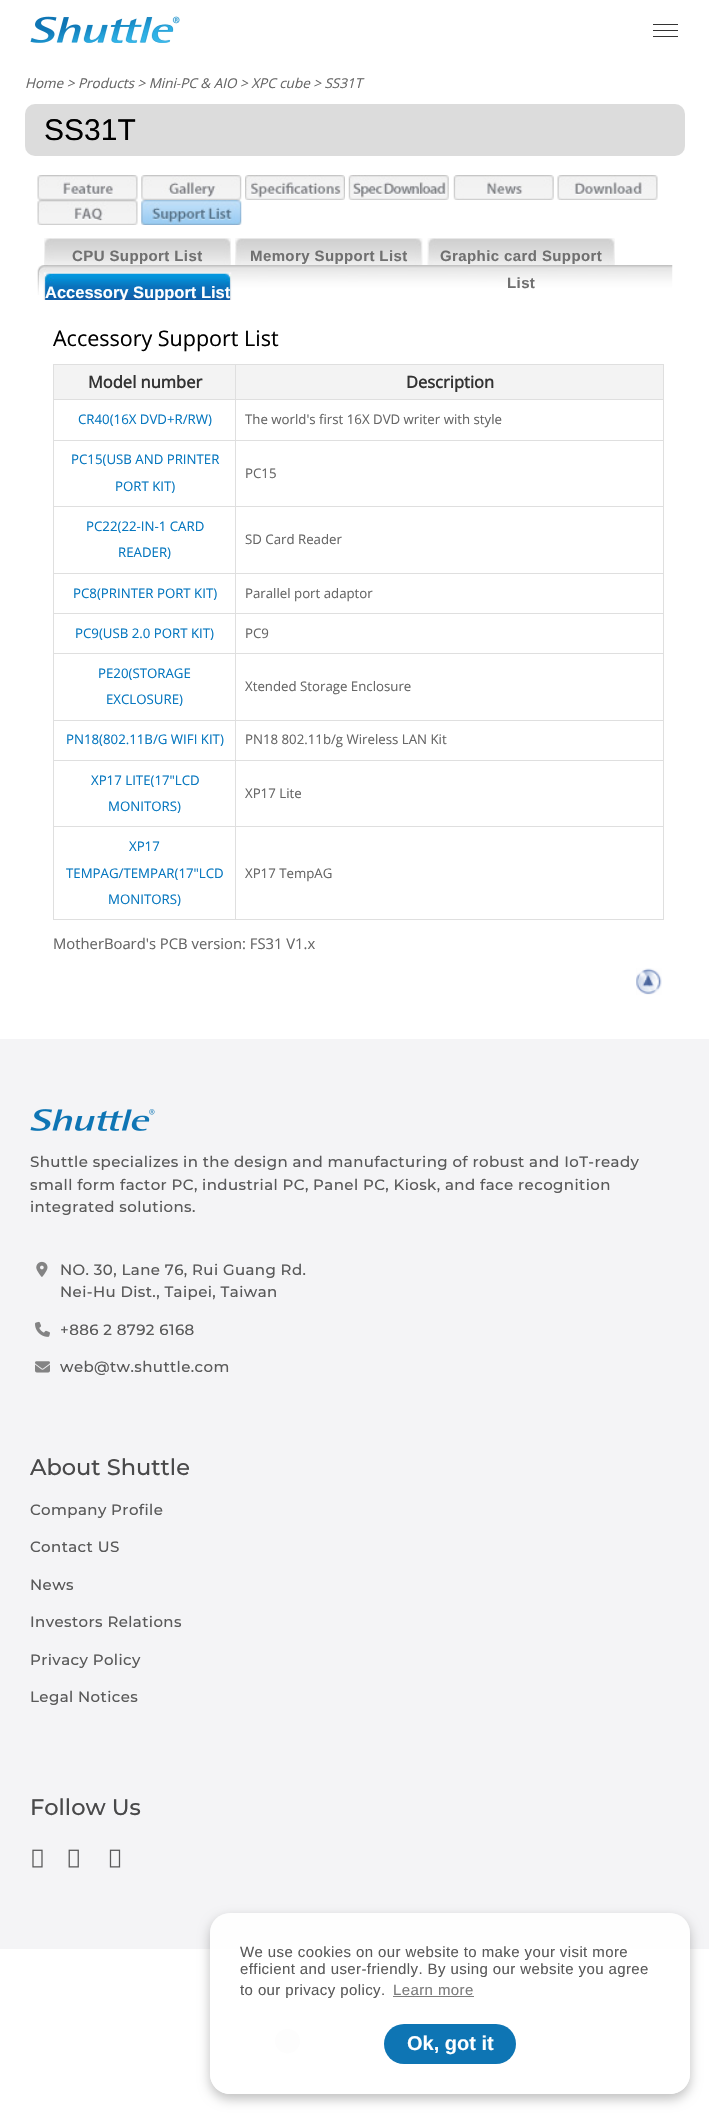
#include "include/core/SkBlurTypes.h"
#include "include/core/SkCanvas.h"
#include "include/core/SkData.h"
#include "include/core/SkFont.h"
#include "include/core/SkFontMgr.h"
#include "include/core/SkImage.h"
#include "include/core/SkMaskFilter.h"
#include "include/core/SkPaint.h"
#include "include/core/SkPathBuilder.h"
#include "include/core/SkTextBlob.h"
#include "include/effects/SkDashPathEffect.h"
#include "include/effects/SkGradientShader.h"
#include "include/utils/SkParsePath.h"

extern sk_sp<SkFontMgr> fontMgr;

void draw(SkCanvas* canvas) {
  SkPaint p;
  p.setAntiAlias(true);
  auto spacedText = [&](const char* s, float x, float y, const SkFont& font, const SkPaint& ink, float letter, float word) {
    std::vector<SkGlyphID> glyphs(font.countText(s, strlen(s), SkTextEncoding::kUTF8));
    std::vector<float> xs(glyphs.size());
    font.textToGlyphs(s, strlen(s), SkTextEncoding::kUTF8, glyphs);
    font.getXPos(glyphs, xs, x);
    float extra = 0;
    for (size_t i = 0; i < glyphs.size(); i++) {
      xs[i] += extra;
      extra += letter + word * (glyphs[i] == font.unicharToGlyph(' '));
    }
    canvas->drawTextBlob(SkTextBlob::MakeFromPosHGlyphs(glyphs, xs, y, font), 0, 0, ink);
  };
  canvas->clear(SK_ColorWHITE);
  canvas->drawImageRect(SkImages::DeferredFromEncodedData(SkData::MakeFromFileName("images/1.png")), SkRect::MakeLTRB(30, 16, 180, 43), SkSamplingOptions());
  canvas->drawImageRect(SkImages::DeferredFromEncodedData(SkData::MakeFromFileName("images/2.png")), SkRect::MakeLTRB(30, 16, 180, 43), SkSamplingOptions());
  p.setColor(SkColorSetRGB(51, 51, 51));
  canvas->drawRect(SkRect::MakeLTRB(653, 24, 678, 25), p);
  canvas->drawRect(SkRect::MakeLTRB(653, 30, 678, 31), p);
  canvas->drawRect(SkRect::MakeLTRB(653, 36, 678, 37), p);
  p.setColor(SkColorSetRGB(220, 220, 220));
  canvas->drawRoundRect(SkRect::MakeLTRB(25, 104, 685, 156), 10, 10, p);
  canvas->drawImageRect(SkImages::DeferredFromEncodedData(SkData::MakeFromFileName("images/3.png")), SkRect::MakeLTRB(37, 175, 138, 200), SkSamplingOptions());
  canvas->drawImageRect(SkImages::DeferredFromEncodedData(SkData::MakeFromFileName("images/4.png")), SkRect::MakeLTRB(141, 175, 242, 200), SkSamplingOptions());
  canvas->drawImageRect(SkImages::DeferredFromEncodedData(SkData::MakeFromFileName("images/5.png")), SkRect::MakeLTRB(245, 175, 345, 200), SkSamplingOptions());
  canvas->drawImageRect(SkImages::DeferredFromEncodedData(SkData::MakeFromFileName("images/6.png")), SkRect::MakeLTRB(348, 175, 449, 200), SkSamplingOptions());
  canvas->drawImageRect(SkImages::DeferredFromEncodedData(SkData::MakeFromFileName("images/7.png")), SkRect::MakeLTRB(453, 175, 554, 200), SkSamplingOptions());
  canvas->drawImageRect(SkImages::DeferredFromEncodedData(SkData::MakeFromFileName("images/8.png")), SkRect::MakeLTRB(557, 175, 658, 200), SkSamplingOptions());
  canvas->drawImageRect(SkImages::DeferredFromEncodedData(SkData::MakeFromFileName("images/9.png")), SkRect::MakeLTRB(37, 200, 138, 225), SkSamplingOptions());
  canvas->drawImageRect(SkImages::DeferredFromEncodedData(SkData::MakeFromFileName("images/10.png")), SkRect::MakeLTRB(141, 200, 242, 225), SkSamplingOptions());
  canvas->drawImageRect(SkImages::DeferredFromEncodedData(SkData::MakeFromFileName("images/11.png")), SkRect::MakeLTRB(37, 265, 673, 295), SkSamplingOptions());
  canvas->drawImageRect(SkImages::DeferredFromEncodedData(SkData::MakeFromFileName("images/12.png")), SkRect::MakeLTRB(44, 238, 231, 265), SkSamplingOptions());
  canvas->drawImageRect(SkImages::DeferredFromEncodedData(SkData::MakeFromFileName("images/13.png")), SkRect::MakeLTRB(235, 238, 423, 265), SkSamplingOptions());
  canvas->drawImageRect(SkImages::DeferredFromEncodedData(SkData::MakeFromFileName("images/14.png")), SkRect::MakeLTRB(427, 238, 615, 265), SkSamplingOptions());
  canvas->drawImageRect(SkImages::DeferredFromEncodedData(SkData::MakeFromFileName("images/15.png")), SkRect::MakeLTRB(43, 272, 232, 300), SkSamplingOptions());
  p.setColor(SkColorSetRGB(223, 223, 223));
  canvas->drawRect(SkRect::MakeLTRB(53, 364, 664, 365), p);
  canvas->drawRect(SkRect::MakeLTRB(53, 364, 54, 920), p);
  p.setColor(SkColorSetRGB(243, 243, 243));
  canvas->drawRect(SkRect::MakeLTRB(54, 365, 235, 399), p);
  p.setColor(SkColorSetRGB(223, 223, 223));
  canvas->drawRect(SkRect::MakeLTRB(663, 364, 664, 920), p);
  canvas->drawRect(SkRect::MakeLTRB(235, 919, 664, 920), p);
  canvas->drawRect(SkRect::MakeLTRB(235, 826, 236, 920), p);
  canvas->drawRect(SkRect::MakeLTRB(235, 826, 664, 827), p);
  canvas->drawRect(SkRect::MakeLTRB(235, 760, 236, 828), p);
  canvas->drawRect(SkRect::MakeLTRB(235, 760, 664, 761), p);
  canvas->drawRect(SkRect::MakeLTRB(235, 720, 236, 761), p);
  canvas->drawRect(SkRect::MakeLTRB(235, 720, 664, 721), p);
  canvas->drawRect(SkRect::MakeLTRB(235, 653, 236, 721), p);
  canvas->drawRect(SkRect::MakeLTRB(235, 653, 664, 654), p);
  canvas->drawRect(SkRect::MakeLTRB(235, 613, 236, 654), p);
  canvas->drawRect(SkRect::MakeLTRB(235, 613, 664, 614), p);
  canvas->drawRect(SkRect::MakeLTRB(235, 573, 236, 614), p);
  canvas->drawRect(SkRect::MakeLTRB(235, 573, 664, 574), p);
  canvas->drawRect(SkRect::MakeLTRB(235, 506, 236, 574), p);
  canvas->drawRect(SkRect::MakeLTRB(235, 506, 664, 507), p);
  canvas->drawRect(SkRect::MakeLTRB(235, 440, 236, 508), p);
  canvas->drawRect(SkRect::MakeLTRB(235, 440, 664, 441), p);
  canvas->drawRect(SkRect::MakeLTRB(235, 399, 236, 441), p);
  canvas->drawRect(SkRect::MakeLTRB(235, 399, 664, 400), p);
  canvas->drawRect(SkRect::MakeLTRB(235, 364, 236, 400), p);
  canvas->drawRect(SkRect::MakeLTRB(53, 399, 236, 400), p);
  p.setColor(SkColorSetRGB(243, 243, 243));
  canvas->drawRect(SkRect::MakeLTRB(236, 365, 663, 399), p);
  p.setColor(SkColorSetRGB(223, 223, 223));
  canvas->drawRect(SkRect::MakeLTRB(53, 440, 236, 441), p);
  canvas->drawRect(SkRect::MakeLTRB(53, 506, 236, 507), p);
  canvas->drawRect(SkRect::MakeLTRB(53, 573, 236, 574), p);
  canvas->drawRect(SkRect::MakeLTRB(53, 613, 236, 614), p);
  canvas->drawRect(SkRect::MakeLTRB(53, 653, 236, 654), p);
  canvas->drawRect(SkRect::MakeLTRB(53, 720, 236, 721), p);
  canvas->drawRect(SkRect::MakeLTRB(53, 760, 236, 761), p);
  canvas->drawRect(SkRect::MakeLTRB(53, 826, 236, 827), p);
  canvas->drawRect(SkRect::MakeLTRB(53, 919, 236, 920), p);
  canvas->drawImageRect(SkImages::DeferredFromEncodedData(SkData::MakeFromFileName("images/16.png")), SkRect::MakeLTRB(636, 968, 662, 995), SkSamplingOptions());
  p.setColor(SkColorSetRGB(244, 244, 246));
  canvas->drawRect(SkRect::MakeLTRB(0, 1039, 709, 1949), p);
  canvas->drawImageRect(SkImages::DeferredFromEncodedData(SkData::MakeFromFileName("images/17.png")), SkRect::MakeLTRB(30, 1109, 155, 1131), SkSamplingOptions());
  canvas->drawImageRect(SkImages::DeferredFromEncodedData(SkData::MakeFromFileName("images/18.png")), SkRect::MakeLTRB(36, 1261, 48, 1277), SkSamplingOptions());
  canvas->drawImageRect(SkImages::DeferredFromEncodedData(SkData::MakeFromFileName("images/19.png")), SkRect::MakeLTRB(35, 1321, 50, 1337), SkSamplingOptions());
  canvas->drawImageRect(SkImages::DeferredFromEncodedData(SkData::MakeFromFileName("images/20.png")), SkRect::MakeLTRB(35, 1361, 50, 1373), SkSamplingOptions());
  canvas->drawImageRect(SkImages::DeferredFromEncodedData(SkData::MakeFromFileName("images/21.png")), SkRect::MakeLTRB(32, 1849, 43, 1868), SkSamplingOptions());
  canvas->drawImageRect(SkImages::DeferredFromEncodedData(SkData::MakeFromFileName("images/22.png")), SkRect::MakeLTRB(68, 1849, 79, 1868), SkSamplingOptions());
  canvas->drawImageRect(SkImages::DeferredFromEncodedData(SkData::MakeFromFileName("images/23.png")), SkRect::MakeLTRB(109, 1849, 121, 1868), SkSamplingOptions());
  p.setColor(SkColorSetRGB(239, 239, 239));
  canvas->drawPath(SkPathBuilder().moveTo(300, 2041).cubicTo(300, 2057.5f, 275, 2057.5f, 275, 2041).cubicTo(275, 2025, 300, 2025, 300, 2041).close().detach(), p);
  canvas->save();
  canvas->clipPath(SkPathBuilder(SkPathFillType::kEvenOdd).moveTo(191, 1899).lineTo(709, 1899).lineTo(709, 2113).lineTo(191, 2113).close().moveTo(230, 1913).lineTo(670, 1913).cubicTo(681, 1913, 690, 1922, 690, 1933).lineTo(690, 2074).cubicTo(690, 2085, 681, 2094, 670, 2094).lineTo(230, 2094).cubicTo(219, 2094, 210, 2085, 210, 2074).lineTo(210, 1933).cubicTo(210, 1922, 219, 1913, 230, 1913).close().detach(), true);
  p.setColor(SkColorSetARGB(64, 0, 0, 0));
  p.setMaskFilter(SkMaskFilter::MakeBlur(kNormal_SkBlurStyle, 6));
  canvas->drawRoundRect(SkRect::MakeLTRB(210, 1918, 690, 2099), 20, 20, p);
  p.setMaskFilter(nullptr);
  canvas->restore();
  p.setColor(SkColorSetARGB(217, 255, 255, 255));
  canvas->drawRoundRect(SkRect::MakeLTRB(210, 1913, 690, 2094), 20, 20, p);
  p.setColor(SkColorSetARGB(163, 51, 51, 51));
  canvas->drawRect(SkRect::MakeLTRB(393, 1996, 474, 1997), p);
  p.setColor(SkColorSetRGB(14, 117, 180));
  canvas->drawRoundRect(SkRect::MakeLTRB(384, 2024, 516, 2064), 20, 20, p);
  SkFont font1(fontMgr->matchFamilyStyle("Open Sans", SkFontStyle::Italic()), 13.5f);
  font1.setSubpixel(true);
  p.setColor(SkColorSetRGB(102, 102, 102));
  canvas->drawString("Home > Products > Mini-PC & AIO > XPC cube > SS31T", 25, 88, font1, p);
  SkFont font2(fontMgr->matchFamilyStyle("Liberation Sans", SkFontStyle::Normal()), 30);
  font2.setSubpixel(true);
  p.setColor(SK_ColorBLACK);
  canvas->drawString("SS31T", 44, 140, font2, p);
  SkFont font3(fontMgr->matchFamilyStyle("Liberation Sans", SkFontStyle::Bold()), 15);
  font3.setSubpixel(true);
  p.setColor(SkColorSetRGB(112, 112, 112));
  spacedText("CPU Support List", 72, 261, font3, p, 0.4f, 0);
  spacedText("Memory Support List", 250, 261, font3, p, 0.4f, 0);
  spacedText("Graphic card Support", 440, 261, font3, p, 0.4f, 0);
  spacedText("List", 507, 288, font3, p, 0.4f, 0);
  canvas->save();
  canvas->clipRect(SkRect::MakeLTRB(38, 238, 673, 300));
  SkFont font4(fontMgr->matchFamilyStyle("Liberation Sans", SkFontStyle::Bold()), 16.5f);
  font4.setSubpixel(true);
  p.setColor(SK_ColorWHITE);
  canvas->drawString("Accessory Support List", 45, 298, font4, p);
  canvas->restore();
  SkFont font5(fontMgr->matchFamilyStyle("Open Sans", SkFontStyle::Normal()), 21.5f);
  font5.setSubpixel(true);
  p.setColor(SK_ColorBLACK);
  canvas->drawString("Accessory Support List", 53, 346, font5, p);
  SkFont font6(fontMgr->matchFamilyStyle("Open Sans", SkFontStyle::Bold()), 16.5f);
  font6.setSubpixel(true);
  p.setColor(SkColorSetRGB(51, 51, 51));
  canvas->drawString("Model number", 88, 388, font6, p);
  canvas->drawString("Description", 406, 388, font6, p);
  SkFont font7(fontMgr->matchFamilyStyle("Open Sans", SkFontStyle::Normal()), 13.25f);
  font7.setSubpixel(true);
  p.setColor(SkColorSetRGB(6, 119, 191));
  canvas->drawString("CR40(16X DVD+R/RW)", 78, 424, font7, p);
  p.setColor(SkColorSetRGB(102, 102, 102));
  canvas->drawString("The world's first 16X DVD writer with style", 245, 424, font7, p);
  p.setColor(SkColorSetRGB(6, 119, 191));
  canvas->drawString("PC15(USB AND PRINTER", 71, 464, font7, p);
  canvas->drawString("PORT KIT)", 115, 491, font7, p);
  p.setColor(SkColorSetRGB(102, 102, 102));
  canvas->drawString("PC15", 245, 478, font7, p);
  p.setColor(SkColorSetRGB(6, 119, 191));
  canvas->drawString("PC22(22-IN-1 CARD", 86, 531, font7, p);
  canvas->drawString("READER)", 118, 557, font7, p);
  p.setColor(SkColorSetRGB(102, 102, 102));
  canvas->drawString("SD Card Reader", 245, 544, font7, p);
  p.setColor(SkColorSetRGB(6, 119, 191));
  canvas->drawString("PC8(PRINTER PORT KIT)", 73, 598, font7, p);
  p.setColor(SkColorSetRGB(102, 102, 102));
  canvas->drawString("Parallel port adaptor", 245, 598, font7, p);
  p.setColor(SkColorSetRGB(6, 119, 191));
  canvas->drawString("PC9(USB 2.0 PORT KIT)", 75, 638, font7, p);
  p.setColor(SkColorSetRGB(102, 102, 102));
  canvas->drawString("PC9", 245, 638, font7, p);
  p.setColor(SkColorSetRGB(6, 119, 191));
  canvas->drawString("PE20(STORAGE", 98, 678, font7, p);
  canvas->drawString("EXCLOSURE)", 106, 704, font7, p);
  p.setColor(SkColorSetRGB(102, 102, 102));
  canvas->drawString("Xtended Storage Enclosure", 245, 691, font7, p);
  p.setColor(SkColorSetRGB(6, 119, 191));
  canvas->drawString("PN18(802.11B/G WIFI KIT)", 66, 744, font7, p);
  p.setColor(SkColorSetRGB(102, 102, 102));
  canvas->drawString("PN18 802.11b/g Wireless LAN Kit", 245, 744, font7, p);
  p.setColor(SkColorSetRGB(6, 119, 191));
  canvas->drawString("XP17 LITE(17\"LCD", 91, 785, font7, p);
  canvas->drawString("MONITORS)", 108, 811, font7, p);
  p.setColor(SkColorSetRGB(102, 102, 102));
  canvas->drawString("XP17 Lite", 245, 798, font7, p);
  p.setColor(SkColorSetRGB(6, 119, 191));
  canvas->drawString("XP17", 129, 851, font7, p);
  canvas->drawString("TEMPAG/TEMPAR(17\"LCD", 66, 878, font7, p);
  canvas->drawString("MONITORS)", 108, 904, font7, p);
  p.setColor(SkColorSetRGB(102, 102, 102));
  canvas->drawString("XP17 TempAG", 245, 878, font7, p);
  SkFont font8(fontMgr->matchFamilyStyle("Open Sans", SkFontStyle::Normal()), 14.8f);
  font8.setSubpixel(true);
  canvas->drawString("MotherBoard's PCB version: FS31 V1.x", 53, 949, font8, p);
  SkFont font9(fontMgr->matchFamilyStyle("Montserrat", SkFontStyle(500, SkFontStyle::kNormal_Width, SkFontStyle::kUpright_Slant)), 15);
  font9.setSubpixel(true);
  p.setColor(SkColorSetRGB(90, 90, 90));
  spacedText("Shuttle specializes in the design and manufacturing of robust and IoT-ready", 30, 1167, font9, p, 0.4f, 0);
  spacedText("small form factor PC, industrial PC, Panel PC, Kiosk, and face recognition", 30, 1190, font9, p, 0.4f, 0);
  spacedText("integrated solutions.", 30, 1212, font9, p, 0.4f, 0);
  spacedText("NO. 30, Lane 76, Rui Guang Rd.", 60, 1275, font9, p, 0.4f, 0);
  spacedText("Nei-Hu Dist., Taipei, Taiwan", 60, 1297, font9, p, 0.4f, 0);
  spacedText("+886 2 8792 6168", 60, 1335, font9, p, 0.4f, 0);
  spacedText("web@tw.shuttle.com", 60, 1372, font9, p, 0.4f, 0);
  SkFont font10(fontMgr->matchFamilyStyle("Montserrat", SkFontStyle(500, SkFontStyle::kNormal_Width, SkFontStyle::kUpright_Slant)), 22.5f);
  font10.setSubpixel(true);
  p.setColor(SkColorSetRGB(73, 73, 74));
  canvas->drawString("About Shuttle", 30, 1475, font10, p);
  p.setColor(SkColorSetRGB(90, 90, 90));
  spacedText("Company Profile", 30, 1515, font9, p, 0.4f, 0);
  spacedText("Contact US", 30, 1552, font9, p, 0.4f, 0);
  spacedText("News", 30, 1590, font9, p, 0.4f, 0);
  spacedText("Investors Relations", 30, 1627, font9, p, 0.4f, 0);
  spacedText("Privacy Policy", 30, 1665, font9, p, 0.4f, 0);
  spacedText("Legal Notices", 30, 1702, font9, p, 0.4f, 0);
  p.setColor(SkColorSetRGB(73, 73, 74));
  canvas->drawString("Follow Us", 30, 1815, font10, p);
  SkFont font11(fontMgr->matchFamilyStyle("Liberation Sans", SkFontStyle::Normal()), 15);
  font11.setSubpixel(true);
  p.setColor(SkColorSetRGB(90, 90, 90));
  spacedText("We use cookies on our website to make your visit more", 240, 1957, font11, p, 0.4f, 0);
  spacedText("efficient and user-friendly. By using our website you agree", 240, 1974, font11, p, 0.4f, 0);
  spacedText("to our privacy policy.", 240, 1995, font11, p, 0.4f, 0);
  p.setColor(SkColorSetRGB(123, 123, 123));
  spacedText("Learn more", 393, 1995, font11, p, 0.4f, 0);
  SkFont font12(fontMgr->matchFamilyStyle("Liberation Sans", SkFontStyle::Bold()), 20);
  font12.setSubpixel(true);
  p.setColor(SK_ColorWHITE);
  canvas->drawString("Ok, got it", 407, 2050, font12, p);
}
